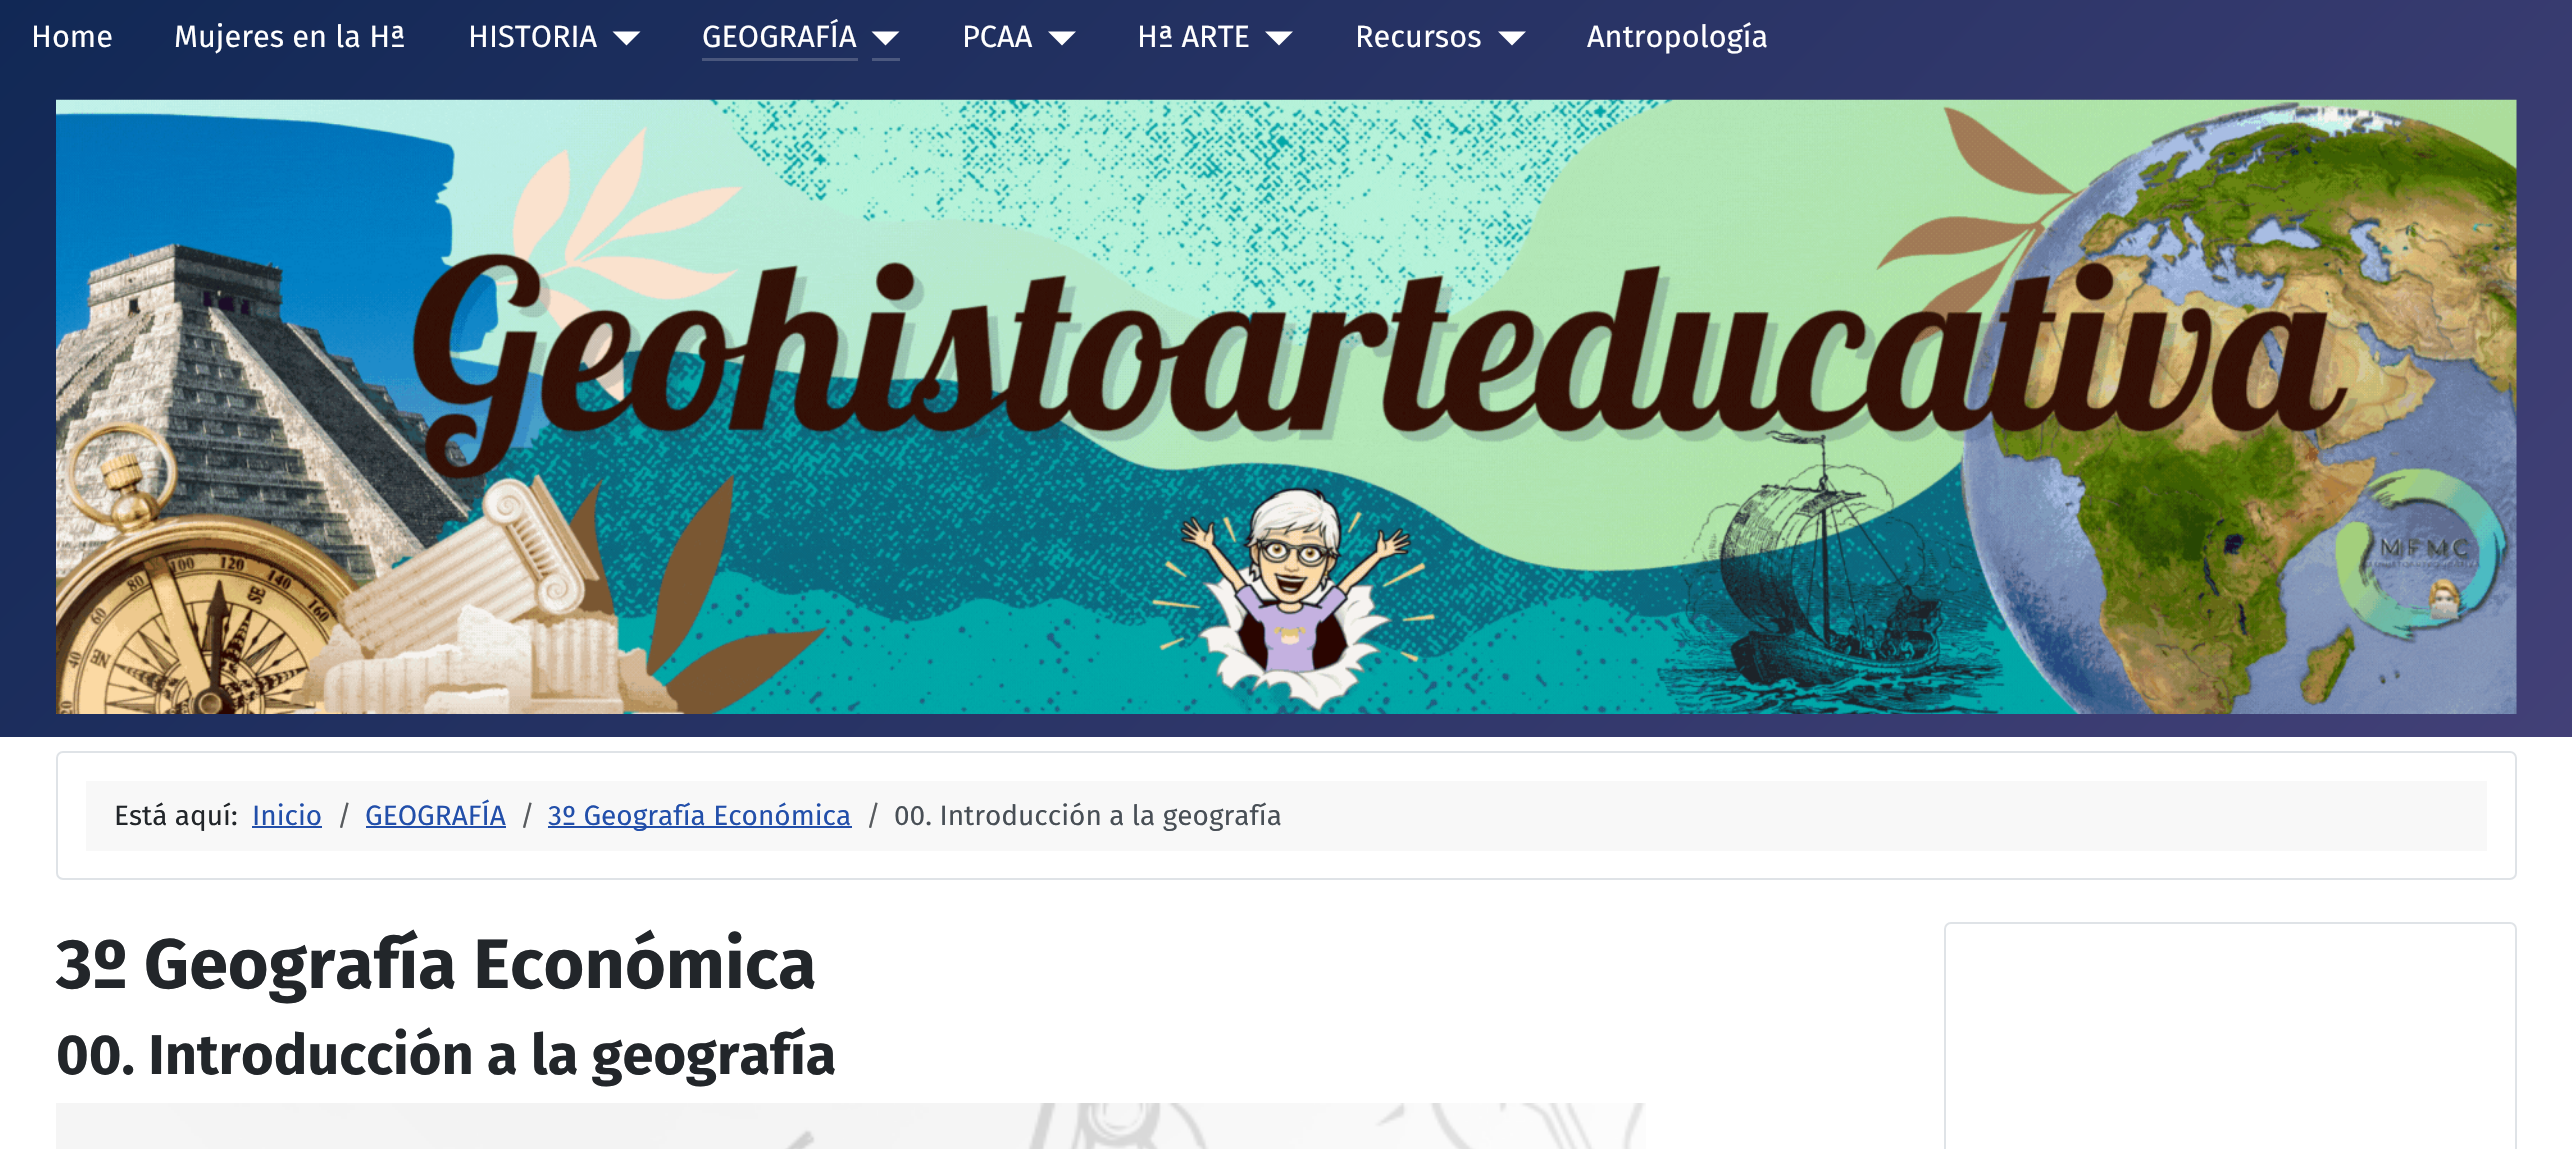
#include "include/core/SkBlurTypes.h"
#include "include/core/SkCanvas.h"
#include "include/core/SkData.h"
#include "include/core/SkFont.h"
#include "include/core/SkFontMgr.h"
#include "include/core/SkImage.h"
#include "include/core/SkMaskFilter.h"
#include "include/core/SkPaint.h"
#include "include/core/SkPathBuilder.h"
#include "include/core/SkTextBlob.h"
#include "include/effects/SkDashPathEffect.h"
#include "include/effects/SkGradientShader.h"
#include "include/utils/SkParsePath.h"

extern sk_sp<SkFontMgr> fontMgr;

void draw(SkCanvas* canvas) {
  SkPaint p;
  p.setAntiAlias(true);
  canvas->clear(SK_ColorWHITE);
  {
    const SkColor colors[] = {SkColorSetRGB(17, 40, 85), SkColorSetRGB(66, 64, 119)};
    const float stops[] = {0, 1};
    const SkPoint ends[] = {{459, -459}, {2114, 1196}};
    p.setShader(SkGradientShader::MakeLinear(ends, colors, stops, 2, SkTileMode::kClamp));
    p.setAlpha(255);
  }
  canvas->drawRect(SkRect::MakeLTRB(0, 0, 2572, 737), p);
  {
    const SkColor colors[] = {SkColorSetRGB(65, 83, 119), SkColorSetRGB(104, 102, 146)};
    const float stops[] = {0, 1};
    const SkPoint ends[] = {{459, -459}, {2114, 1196}};
    p.setShader(SkGradientShader::MakeLinear(ends, colors, stops, 2, SkTileMode::kClamp));
    p.setAlpha(255);
  }
  canvas->drawRect(SkRect::MakeLTRB(702, 58, 858, 61), p);
  p.setShader(nullptr);
  p.setColor(SK_ColorWHITE);
  canvas->drawPath(SkPathBuilder().moveTo(612.5f, 31.5f).lineTo(640.5f, 31.5f).lineTo(626.5f, 45.5f).close().detach(), p);
  canvas->drawPath(SkPathBuilder().moveTo(871.5f, 31.5f).lineTo(899.5f, 31.5f).lineTo(885.5f, 45.5f).close().detach(), p);
  p.setColor(SkColorSetRGB(76, 89, 127));
  canvas->drawRect(SkRect::MakeLTRB(872, 58, 900, 61), p);
  p.setColor(SK_ColorWHITE);
  canvas->drawPath(SkPathBuilder().moveTo(1048, 31.5f).lineTo(1076, 31.5f).lineTo(1062, 45.5f).close().detach(), p);
  canvas->drawPath(SkPathBuilder().moveTo(1265, 31.5f).lineTo(1293, 31.5f).lineTo(1279, 45.5f).close().detach(), p);
  canvas->drawPath(SkPathBuilder().moveTo(1498, 31.5f).lineTo(1526, 31.5f).lineTo(1512, 45.5f).close().detach(), p);
  canvas->drawImageRect(SkImages::DeferredFromEncodedData(SkData::MakeFromFileName("images/1.png")), SkRect::MakeLTRB(56, 99, 2517, 714), SkSamplingOptions());
  p.setStyle(SkPaint::kStroke_Style);
  p.setStrokeWidth(2);
  p.setColor(SkColorSetRGB(223, 227, 231));
  canvas->drawRoundRect(SkRect::MakeLTRB(57, 752, 2516, 879), 6, 6, p);
  p.setStyle(SkPaint::kFill_Style);
  p.setColor(SkColorSetRGB(248, 248, 248));
  canvas->drawRect(SkRect::MakeLTRB(86, 781, 2487, 851), p);
  p.setColor(SkColorSetRGB(34, 79, 170));
  canvas->drawRect(SkRect::MakeLTRB(252, 826, 322, 828), p);
  canvas->drawRect(SkRect::MakeLTRB(366, 826, 506, 828), p);
  canvas->drawRect(SkRect::MakeLTRB(548, 826, 852, 828), p);
  canvas->drawImageRect(SkImages::DeferredFromEncodedData(SkData::MakeFromFileName("images/2.png")), SkRect::MakeLTRB(56, 1103, 1646, 1149), SkSamplingOptions());
  p.setStyle(SkPaint::kStroke_Style);
  p.setColor(SkColorSetRGB(223, 227, 231));
  canvas->drawRoundRect(SkRect::MakeLTRB(1945, 923, 2516, 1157), 6, 6, p);
  SkFont font1(fontMgr->matchFamilyStyle("Fira Sans", SkFontStyle::Normal()), 30.75f);
  font1.setSubpixel(true);
  p.setStyle(SkPaint::kFill_Style);
  p.setColor(SK_ColorWHITE);
  canvas->drawString("Home", 31, 47, font1, p);
  canvas->drawString("Mujeres en la Hª", 174, 47, font1, p);
  canvas->drawString("HISTORIA", 468, 47, font1, p);
  canvas->drawString("GEOGRAFÍA", 702, 47, font1, p);
  canvas->drawString("PCAA", 962, 47, font1, p);
  canvas->drawString("Hª ARTE", 1137, 47, font1, p);
  canvas->drawString("Recursos", 1355, 47, font1, p);
  canvas->drawString("Antropología", 1587, 47, font1, p);
  SkFont font2(fontMgr->matchFamilyStyle("Fira Sans", SkFontStyle::Normal()), 28);
  font2.setSubpixel(true);
  p.setColor(SkColorSetRGB(34, 38, 42));
  canvas->drawString("Está aquí:", 114, 825, font2, p);
  p.setColor(SkColorSetRGB(34, 79, 170));
  canvas->drawString("Inicio", 252, 825, font2, p);
  p.setColor(SkColorSetRGB(88, 91, 94));
  canvas->drawString("/", 337, 825, font2, p);
  p.setColor(SkColorSetRGB(34, 79, 170));
  canvas->drawString("GEOGRAFÍA", 365, 825, font2, p);
  p.setColor(SkColorSetRGB(88, 91, 94));
  canvas->drawString("/", 520, 825, font2, p);
  p.setColor(SkColorSetRGB(34, 79, 170));
  canvas->drawString("3º Geografía Económica", 548, 825, font2, p);
  p.setColor(SkColorSetRGB(88, 91, 94));
  canvas->drawString("/", 866, 825, font2, p);
  p.setColor(SkColorSetRGB(72, 79, 86));
  canvas->drawString("00. Introducción a la geografía", 894, 825, font2, p);
  SkFont font3(fontMgr->matchFamilyStyle("Fira Sans", SkFontStyle::Bold()), 70);
  font3.setSubpixel(true);
  p.setColor(SkColorSetRGB(34, 38, 42));
  canvas->drawString("3º Geografía Económica", 56, 988, font3, p);
  SkFont font4(fontMgr->matchFamilyStyle("Fira Sans", SkFontStyle::Bold()), 56);
  font4.setSubpixel(true);
  canvas->drawString("00. Introducción a la geografía", 56, 1074, font4, p);
}
